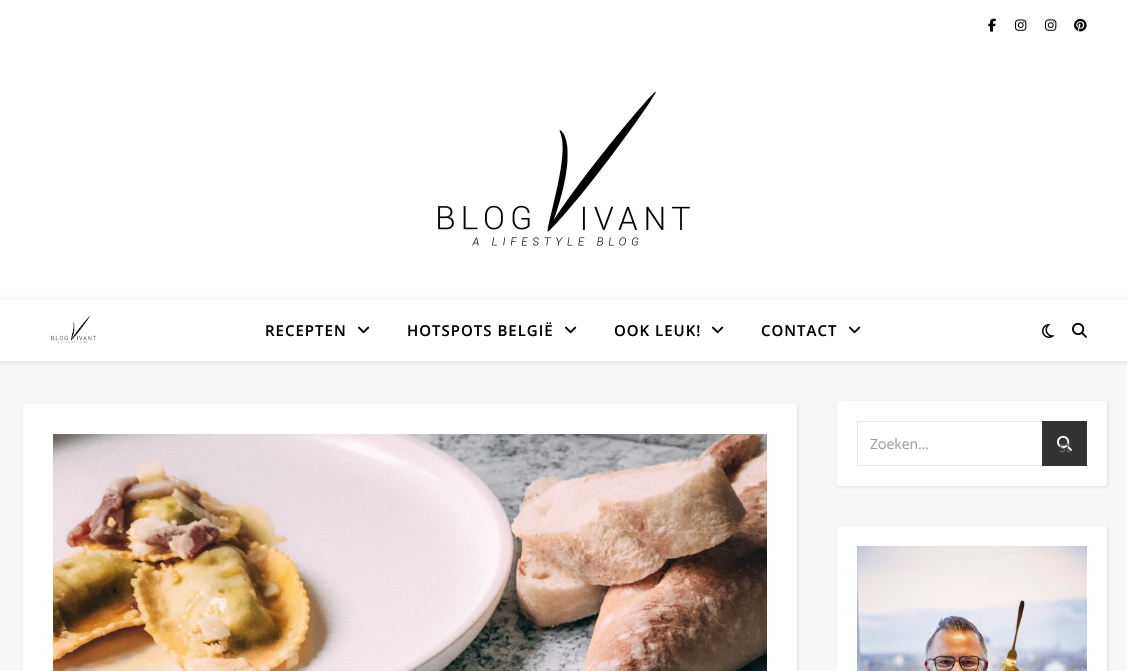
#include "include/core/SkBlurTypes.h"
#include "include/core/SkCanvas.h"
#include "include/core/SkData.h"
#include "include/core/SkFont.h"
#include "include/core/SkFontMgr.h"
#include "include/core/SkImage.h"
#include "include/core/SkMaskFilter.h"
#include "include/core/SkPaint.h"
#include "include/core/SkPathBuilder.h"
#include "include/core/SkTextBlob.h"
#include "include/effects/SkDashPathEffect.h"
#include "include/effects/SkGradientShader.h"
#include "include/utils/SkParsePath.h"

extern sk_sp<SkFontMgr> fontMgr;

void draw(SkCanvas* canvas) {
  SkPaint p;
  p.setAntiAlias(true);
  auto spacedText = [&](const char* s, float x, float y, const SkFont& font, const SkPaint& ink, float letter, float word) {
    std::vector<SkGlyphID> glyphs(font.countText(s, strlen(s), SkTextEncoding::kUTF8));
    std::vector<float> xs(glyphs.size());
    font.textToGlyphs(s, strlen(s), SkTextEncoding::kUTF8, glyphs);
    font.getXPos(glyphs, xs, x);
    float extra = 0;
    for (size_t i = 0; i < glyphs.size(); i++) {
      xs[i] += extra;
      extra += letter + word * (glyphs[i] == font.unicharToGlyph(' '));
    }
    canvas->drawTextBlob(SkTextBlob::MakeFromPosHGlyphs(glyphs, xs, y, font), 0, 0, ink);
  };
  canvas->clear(SkColorSetRGB(247, 247, 247));
  p.setColor(SK_ColorWHITE);
  canvas->drawRect(SkRect::MakeLTRB(0, 0, 1127, 300), p);
  canvas->drawImageRect(SkImages::DeferredFromEncodedData(SkData::MakeFromFileName("images/1.png")), SkRect::MakeLTRB(988, 18, 996, 32), SkSamplingOptions());
  canvas->drawImageRect(SkImages::DeferredFromEncodedData(SkData::MakeFromFileName("images/2.png")), SkRect::MakeLTRB(1015, 19, 1027, 31), SkSamplingOptions());
  canvas->drawImageRect(SkImages::DeferredFromEncodedData(SkData::MakeFromFileName("images/2.png")), SkRect::MakeLTRB(1045, 19, 1057, 31), SkSamplingOptions());
  canvas->drawImageRect(SkImages::DeferredFromEncodedData(SkData::MakeFromFileName("images/3.png")), SkRect::MakeLTRB(1074, 18, 1087, 32), SkSamplingOptions());
  canvas->drawImageRect(SkImages::DeferredFromEncodedData(SkData::MakeFromFileName("images/4.png")), SkRect::MakeLTRB(438, 91, 690, 246), SkSamplingOptions());
  p.setColor(SkColorSetARGB(26, 0, 0, 0));
  p.setMaskFilter(SkMaskFilter::MakeBlur(kNormal_SkBlurStyle, 2.5f));
  canvas->drawRect(SkRect::MakeLTRB(0, 301, 1127, 362), p);
  p.setMaskFilter(nullptr);
  p.setColor(SK_ColorWHITE);
  canvas->drawRect(SkRect::MakeLTRB(0, 300, 1127, 361), p);
  canvas->drawImageRect(SkImages::DeferredFromEncodedData(SkData::MakeFromFileName("images/5.png")), SkRect::MakeLTRB(51, 315, 97, 344), SkSamplingOptions());
  canvas->drawImageRect(SkImages::DeferredFromEncodedData(SkData::MakeFromFileName("images/6.png")), SkRect::MakeLTRB(358, 326, 370, 334), SkSamplingOptions());
  canvas->drawImageRect(SkImages::DeferredFromEncodedData(SkData::MakeFromFileName("images/6.png")), SkRect::MakeLTRB(565, 326, 577, 334), SkSamplingOptions());
  canvas->drawImageRect(SkImages::DeferredFromEncodedData(SkData::MakeFromFileName("images/6.png")), SkRect::MakeLTRB(712, 326, 724, 334), SkSamplingOptions());
  canvas->drawImageRect(SkImages::DeferredFromEncodedData(SkData::MakeFromFileName("images/6.png")), SkRect::MakeLTRB(849, 326, 861, 334), SkSamplingOptions());
  canvas->drawImageRect(SkImages::DeferredFromEncodedData(SkData::MakeFromFileName("images/7.png")), SkRect::MakeLTRB(1042, 324, 1054, 338), SkSamplingOptions());
  canvas->drawImageRect(SkImages::DeferredFromEncodedData(SkData::MakeFromFileName("images/8.png")), SkRect::MakeLTRB(1072, 322, 1087, 338), SkSamplingOptions());
  p.setColor(SkColorSetARGB(26, 0, 0, 0));
  p.setMaskFilter(SkMaskFilter::MakeBlur(kNormal_SkBlurStyle, 1.5f));
  canvas->drawRoundRect(SkRect::MakeLTRB(24, 405, 798, 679), 3, 3, p);
  p.setMaskFilter(nullptr);
  p.setColor(SK_ColorWHITE);
  canvas->drawRoundRect(SkRect::MakeLTRB(23, 404, 797, 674), 3, 3, p);
  canvas->drawImageRect(SkImages::DeferredFromEncodedData(SkData::MakeFromFileName("images/9.png")), SkRect::MakeLTRB(53, 434, 767, 671), SkSamplingOptions());
  p.setColor(SkColorSetARGB(26, 0, 0, 0));
  p.setMaskFilter(SkMaskFilter::MakeBlur(kNormal_SkBlurStyle, 1.5f));
  canvas->drawRoundRect(SkRect::MakeLTRB(838, 402, 1108, 487), 3, 3, p);
  p.setMaskFilter(nullptr);
  p.setColor(SK_ColorWHITE);
  canvas->drawRoundRect(SkRect::MakeLTRB(837, 401, 1107, 486), 3, 3, p);
  p.setStyle(SkPaint::kStroke_Style);
  p.setStrokeWidth(1);
  p.setColor(SkColorSetRGB(232, 232, 232));
  canvas->drawRect(SkRect::MakeLTRB(857.5f, 421.5f, 1086.5f, 465.5f), p);
  p.setStyle(SkPaint::kFill_Style);
  p.setColor(SkColorSetRGB(51, 51, 51));
  canvas->drawRect(SkRect::MakeLTRB(1042, 421, 1087, 466), p);
  canvas->drawImageRect(SkImages::DeferredFromEncodedData(SkData::MakeFromFileName("images/10.png")), SkRect::MakeLTRB(1057, 435, 1072, 451), SkSamplingOptions());
  p.setColor(SkColorSetARGB(26, 0, 0, 0));
  p.setMaskFilter(SkMaskFilter::MakeBlur(kNormal_SkBlurStyle, 1.5f));
  canvas->drawRoundRect(SkRect::MakeLTRB(838, 527, 1108, 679), 3, 3, p);
  p.setMaskFilter(nullptr);
  p.setColor(SK_ColorWHITE);
  canvas->drawRoundRect(SkRect::MakeLTRB(837, 526, 1107, 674), 3, 3, p);
  canvas->drawImageRect(SkImages::DeferredFromEncodedData(SkData::MakeFromFileName("images/11.png")), SkRect::MakeLTRB(857, 546, 1087, 671), SkSamplingOptions());
  SkFont font1(fontMgr->matchFamilyStyle("Open Sans", SkFontStyle(600, SkFontStyle::kNormal_Width, SkFontStyle::kUpright_Slant)), 15);
  font1.setSubpixel(true);
  p.setColor(SK_ColorBLACK);
  spacedText("RECEPTEN", 265, 336, font1, p, 1, 0);
  spacedText("HOTSPOTS BELGIË", 407, 336, font1, p, 1, 0);
  spacedText("OOK LEUK!", 614, 336, font1, p, 1, 0);
  spacedText("CONTACT", 761, 336, font1, p, 1, 0);
  SkFont font2(fontMgr->matchFamilyStyle("Open Sans", SkFontStyle::Normal()), 14);
  font2.setSubpixel(true);
  p.setColor(SkColorSetRGB(161, 161, 161));
  canvas->drawString("Zoeken…", 870, 449, font2, p);
  p.setColor(SkColorSetRGB(111, 111, 111));
  canvas->drawString("st", 1059, 452, font2, p);
}
